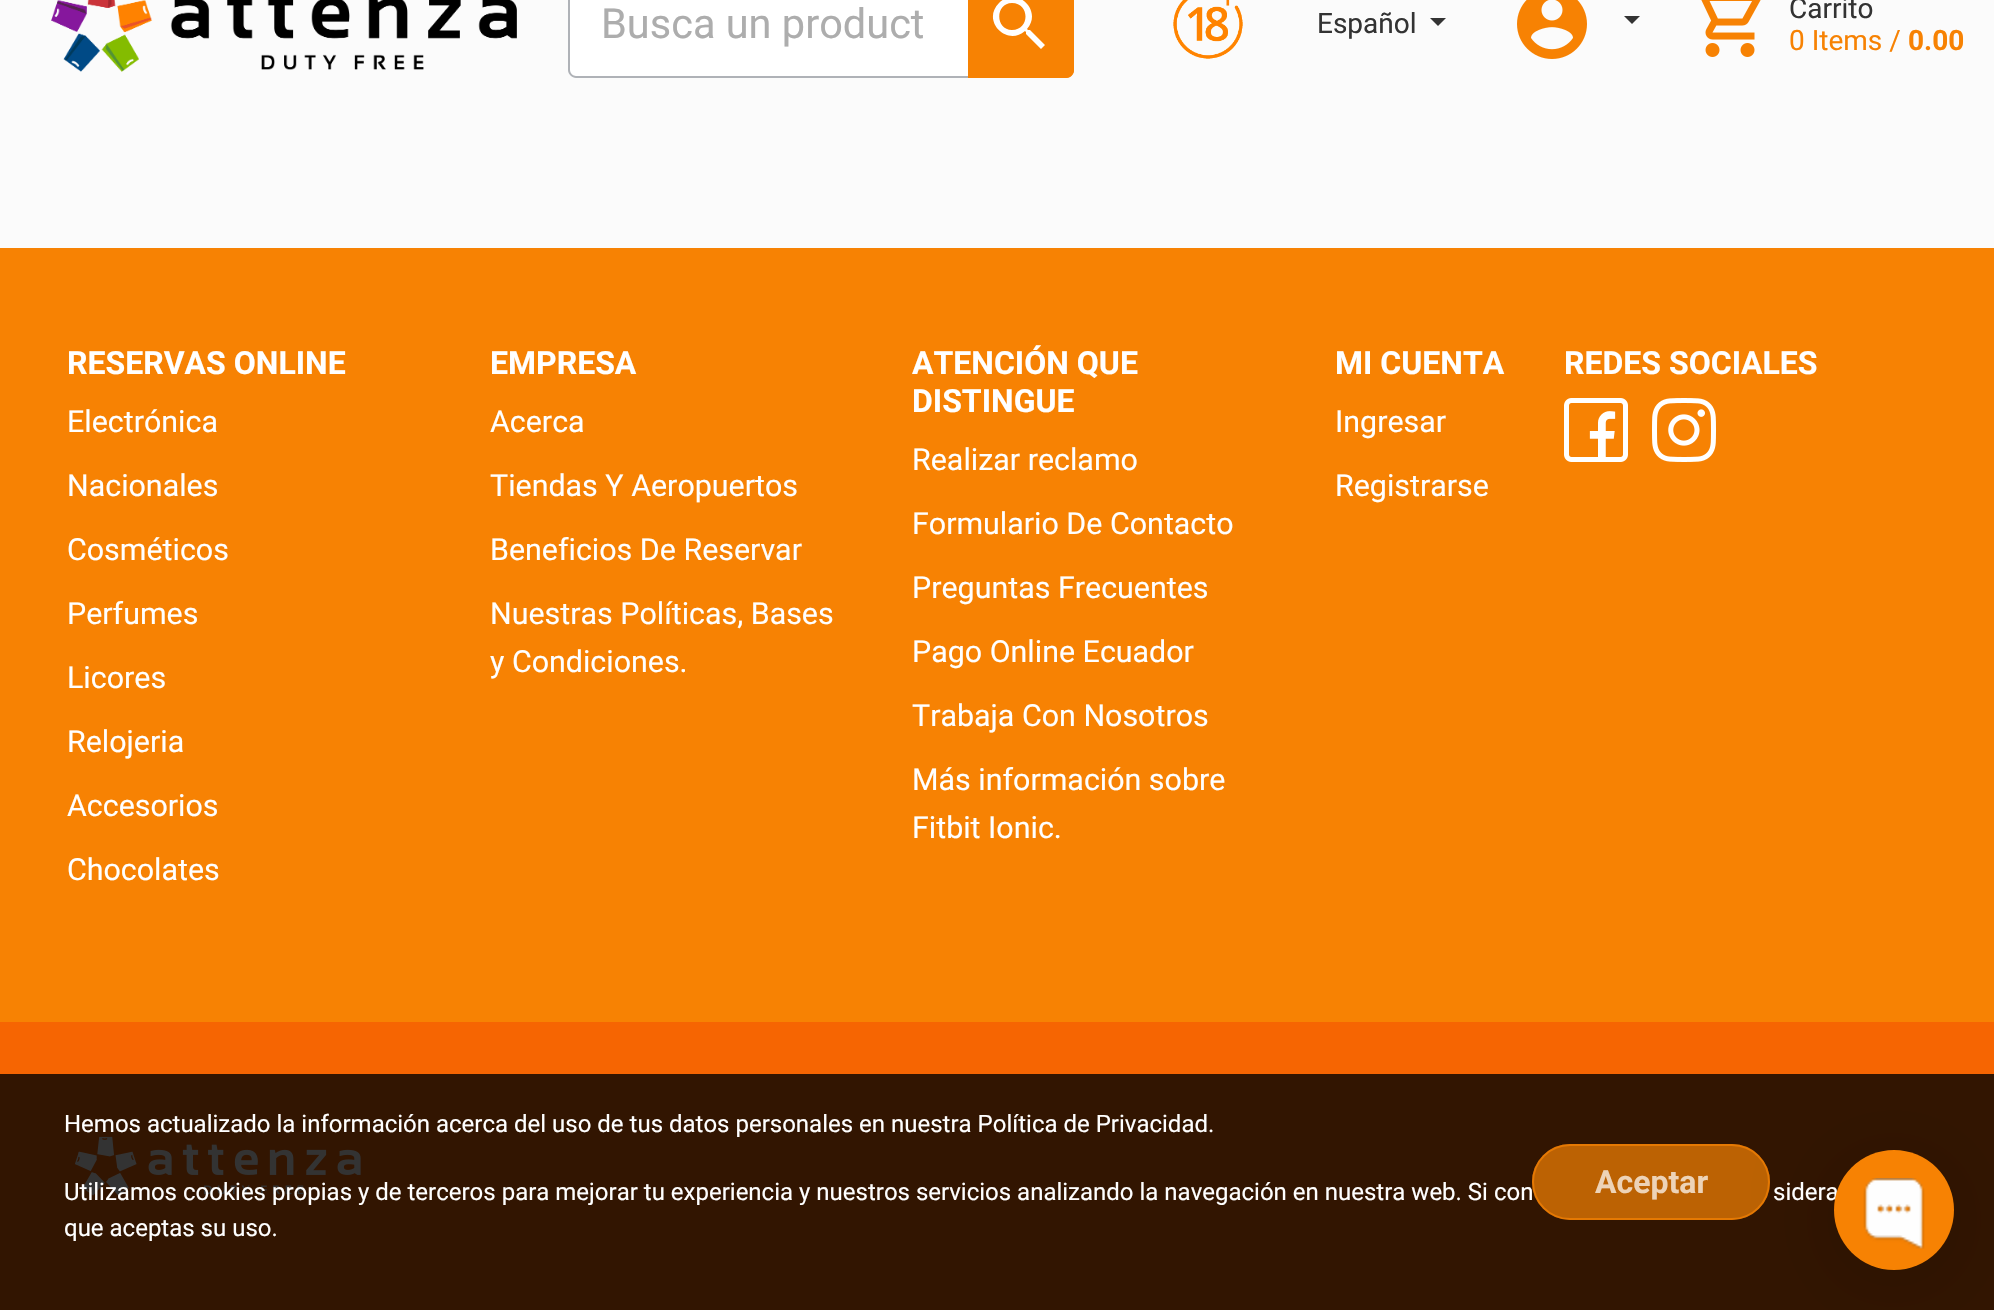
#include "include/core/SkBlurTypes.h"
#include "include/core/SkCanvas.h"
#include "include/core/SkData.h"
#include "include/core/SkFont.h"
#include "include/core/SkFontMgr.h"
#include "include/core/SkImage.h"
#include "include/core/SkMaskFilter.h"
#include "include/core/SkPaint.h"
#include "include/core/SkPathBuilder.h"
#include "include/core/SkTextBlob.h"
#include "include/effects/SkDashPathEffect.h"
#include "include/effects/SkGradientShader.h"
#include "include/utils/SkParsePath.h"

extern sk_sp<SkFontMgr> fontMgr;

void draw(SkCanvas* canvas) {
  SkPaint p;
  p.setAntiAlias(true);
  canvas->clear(SkColorSetRGB(251, 251, 251));
  canvas->drawImageRect(SkImages::DeferredFromEncodedData(SkData::MakeFromFileName("images/1.png")), SkRect::MakeLTRB(51, 0, 517, 72), SkSamplingOptions());
  p.setColor(SK_ColorWHITE);
  canvas->drawPath(SkPathBuilder().moveTo(576, -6).lineTo(968, -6).lineTo(968, 76).lineTo(576, 76).cubicTo(572.5f, 76, 570, 73.5f, 570, 70).lineTo(570, 0).cubicTo(570, -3.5f, 572.5f, -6, 576, -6).close().detach(), p);
  p.setColor(SkColorSetRGB(175, 178, 183));
  canvas->drawPath(SkPathBuilder(SkPathFillType::kEvenOdd).moveTo(576, -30).lineTo(968, -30).lineTo(968, 78).lineTo(576, 78).cubicTo(572, 78, 568, 74, 568, 70).lineTo(568, -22).cubicTo(568, -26, 572, -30, 576, -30).close().moveTo(576, -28).lineTo(968, -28).lineTo(968, 76).lineTo(576, 76).cubicTo(573, 76, 570, 73, 570, 70).lineTo(570, -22).cubicTo(570, -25, 573, -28, 576, -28).close().detach(), p);
  p.setColor(SkColorSetRGB(247, 130, 3));
  canvas->drawPath(SkPathBuilder().moveTo(968, -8).lineTo(1066, -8).cubicTo(1070.5f, -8, 1074, -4.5f, 1074, 0).lineTo(1074, 70).cubicTo(1074, 74.5f, 1070.5f, 78, 1066, 78).lineTo(968, 78).close().detach(), p);
  canvas->drawPath(SkPathBuilder(SkPathFillType::kEvenOdd).moveTo(968, -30).lineTo(1066, -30).cubicTo(1070, -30, 1074, -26, 1074, -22).lineTo(1074, 70).cubicTo(1074, 74, 1070, 78, 1066, 78).lineTo(968, 78).close().moveTo(968, -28).lineTo(1066, -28).cubicTo(1069, -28, 1072, -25, 1072, -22).lineTo(1072, 70).cubicTo(1072, 73, 1069, 76, 1066, 76).lineTo(968, 76).close().detach(), p);
  p.setColor(SK_ColorWHITE);
  canvas->drawPath(SkPathBuilder().moveTo(1030, 30).lineTo(1028, 30).lineTo(1027, 29).cubicTo(1043, 11, 1017, -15, 999, 3).cubicTo(981, 21, 1007, 47, 1025, 31).lineTo(1026, 32).lineTo(1026, 34).lineTo(1041, 49).lineTo(1045, 45).close().moveTo(1012, 30).cubicTo(995, 30, 995, 3, 1012, 3).cubicTo(1030, 3, 1030, 30, 1012, 30).close().detach(), p);
  canvas->drawImageRect(SkImages::DeferredFromEncodedData(SkData::MakeFromFileName("images/2.png")), SkRect::MakeLTRB(1173, 0, 1243, 59), SkSamplingOptions());
  p.setColor(SkColorSetRGB(51, 51, 51));
  canvas->drawPath(SkPathBuilder().moveTo(1430, 18).lineTo(1446, 18).lineTo(1438, 26).close().detach(), p);
  canvas->drawImageRect(SkImages::DeferredFromEncodedData(SkData::MakeFromFileName("images/3.png")), SkRect::MakeLTRB(1517, 0, 1587, 59), SkSamplingOptions());
  canvas->drawPath(SkPathBuilder().moveTo(1624, 16).lineTo(1640, 16).lineTo(1632, 24).close().detach(), p);
  canvas->drawImageRect(SkImages::DeferredFromEncodedData(SkData::MakeFromFileName("images/4.png")), SkRect::MakeLTRB(1701, 0, 1761, 57), SkSamplingOptions());
  p.setColor(SkColorSetRGB(247, 130, 3));
  canvas->drawRect(SkRect::MakeLTRB(0, 248, 1994, 1022), p);
  canvas->drawImageRect(SkImages::DeferredFromEncodedData(SkData::MakeFromFileName("images/5.png")), SkRect::MakeLTRB(1564, 398, 1628, 462), SkSamplingOptions());
  canvas->drawImageRect(SkImages::DeferredFromEncodedData(SkData::MakeFromFileName("images/6.png")), SkRect::MakeLTRB(1652, 398, 1716, 462), SkSamplingOptions());
  p.setColor(SkColorSetRGB(246, 101, 2));
  canvas->drawRect(SkRect::MakeLTRB(0, 1022, 1994, 1310), p);
  canvas->drawImageRect(SkImages::DeferredFromEncodedData(SkData::MakeFromFileName("images/7.png")), SkRect::MakeLTRB(75, 1136, 361, 1196), SkSamplingOptions());
  p.setColor(SkColorSetARGB(204, 0, 0, 0));
  canvas->drawRect(SkRect::MakeLTRB(0, 1074, 1994, 1310), p);
  p.setColor(SkColorSetARGB(179, 247, 130, 3));
  canvas->drawRoundRect(SkRect::MakeLTRB(1532, 1144, 1770, 1220), 38, 38, p);
  p.setStyle(SkPaint::kStroke_Style);
  p.setStrokeWidth(2);
  canvas->drawRoundRect(SkRect::MakeLTRB(1533, 1145, 1769, 1219), 37, 37, p);
  p.setStyle(SkPaint::kFill_Style);
  p.setColor(SkColorSetARGB(38, 0, 0, 0));
  p.setMaskFilter(SkMaskFilter::MakeBlur(kNormal_SkBlurStyle, 38));
  canvas->drawRoundRect(SkRect::MakeLTRB(1834, 1160, 1954, 1280), 60, 60, p);
  p.setMaskFilter(nullptr);
  SkFont font1(fontMgr->matchFamilyStyle("Roboto", SkFontStyle::Normal()), 41.5f);
  font1.setSubpixel(true);
  p.setColor(SkColorSetRGB(173, 173, 173));
  canvas->drawString("Busca un product", 601, 38, font1, p);
  SkFont font2(fontMgr->matchFamilyStyle("Roboto", SkFontStyle::Normal()), 28);
  font2.setSubpixel(true);
  p.setColor(SkColorSetRGB(51, 51, 51));
  canvas->drawString("Español", 1317, 33, font2, p);
  canvas->drawString("Carrito", 1789, 18, font2, p);
  p.setColor(SkColorSetRGB(247, 130, 3));
  canvas->drawString("0 Items /", 1789, 50, font2, p);
  SkFont font3(fontMgr->matchFamilyStyle("Roboto", SkFontStyle::Bold()), 28);
  font3.setSubpixel(true);
  canvas->drawString("0.00", 1908, 50, font3, p);
  SkFont font4(fontMgr->matchFamilyStyle("Roboto", SkFontStyle::Bold()), 32);
  font4.setSubpixel(true);
  p.setColor(SK_ColorWHITE);
  canvas->drawString("RESERVAS ONLINE", 67, 374, font4, p);
  SkFont font5(fontMgr->matchFamilyStyle("Roboto", SkFontStyle::Normal()), 30.4f);
  font5.setSubpixel(true);
  canvas->drawString("Electrónica", 67, 432, font5, p);
  canvas->drawString("Nacionales", 67, 496, font5, p);
  canvas->drawString("Cosméticos", 67, 560, font5, p);
  canvas->drawString("Perfumes", 67, 624, font5, p);
  canvas->drawString("Licores", 67, 688, font5, p);
  canvas->drawString("Relojeria", 67, 752, font5, p);
  canvas->drawString("Accesorios", 67, 816, font5, p);
  canvas->drawString("Chocolates", 67, 880, font5, p);
  canvas->drawString("EMPRESA", 490, 374, font4, p);
  canvas->drawString("Acerca", 490, 432, font5, p);
  canvas->drawString("Tiendas Y Aeropuertos", 490, 496, font5, p);
  canvas->drawString("Beneficios De Reservar", 490, 560, font5, p);
  canvas->drawString("Nuestras Políticas, Bases", 490, 624, font5, p);
  canvas->drawString("y Condiciones.", 490, 672, font5, p);
  canvas->drawString("ATENCIÓN QUE", 912, 374, font4, p);
  canvas->drawString("DISTINGUE", 912, 412, font4, p);
  canvas->drawString("Realizar reclamo", 912, 470, font5, p);
  canvas->drawString("Formulario De Contacto", 912, 534, font5, p);
  canvas->drawString("Preguntas Frecuentes", 912, 598, font5, p);
  canvas->drawString("Pago Online Ecuador", 912, 662, font5, p);
  canvas->drawString("Trabaja Con Nosotros", 912, 726, font5, p);
  canvas->drawString("Más información sobre", 912, 790, font5, p);
  canvas->drawString("Fitbit Ionic.", 912, 838, font5, p);
  canvas->drawString("MI CUENTA", 1335, 374, font4, p);
  canvas->drawString("Ingresar", 1335, 432, font5, p);
  canvas->drawString("Registrarse", 1335, 496, font5, p);
  canvas->drawString("REDES SOCIALES", 1564, 374, font4, p);
  SkFont font6(fontMgr->matchFamilyStyle("Roboto", SkFontStyle::Normal()), 24);
  font6.setSubpixel(true);
  canvas->drawString("Hemos actualizado la información acerca del uso de tus datos personales en nuestra Política de Privacidad.", 64, 1132, font6, p);
  p.setColor(SkColorSetRGB(237, 211, 183));
  canvas->drawString("Aceptar", 1595, 1193, font4, p);
  p.setColor(SK_ColorWHITE);
  canvas->drawString("Utilizamos cookies propias y de terceros para mejorar tu experiencia y nuestros servicios analizando la navegación en nuestra web. Si con", 64, 1200, font6, p);
  canvas->drawString("sidera", 1773, 1200, font6, p);
  canvas->drawString("que aceptas su uso.", 64, 1236, font6, p);
  p.setColor(SkColorSetRGB(247, 130, 3));
  canvas->drawCircle(1894, 1210, 60, p);
  canvas->drawImageRect(SkImages::DeferredFromEncodedData(SkData::MakeFromFileName("images/8.png")), SkRect::MakeLTRB(1863, 1178, 1925, 1249), SkSamplingOptions());
}
